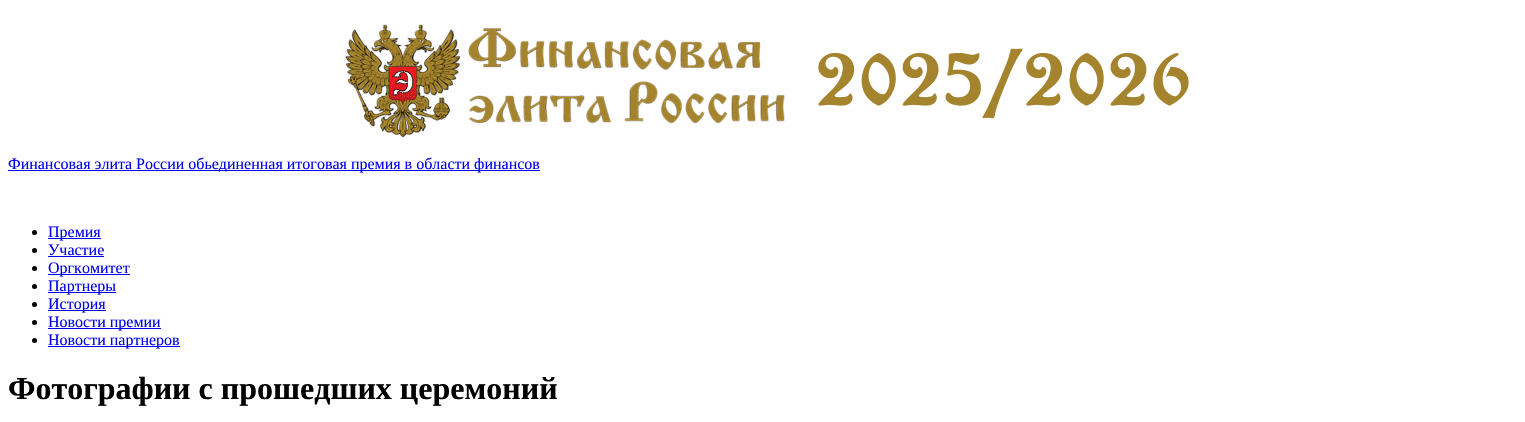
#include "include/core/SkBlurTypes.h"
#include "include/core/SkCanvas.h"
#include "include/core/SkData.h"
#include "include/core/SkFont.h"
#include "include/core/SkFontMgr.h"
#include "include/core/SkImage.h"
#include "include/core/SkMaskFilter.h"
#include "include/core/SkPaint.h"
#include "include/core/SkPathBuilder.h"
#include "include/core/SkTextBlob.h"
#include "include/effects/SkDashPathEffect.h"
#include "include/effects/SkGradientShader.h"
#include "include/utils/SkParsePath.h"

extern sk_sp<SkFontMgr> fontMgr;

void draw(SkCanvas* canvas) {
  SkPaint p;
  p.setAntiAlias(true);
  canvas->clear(SK_ColorWHITE);
  canvas->drawImageRect(SkImages::DeferredFromEncodedData(SkData::MakeFromFileName("images/1.png")), SkRect::MakeLTRB(345, 24, 1189, 138), SkSamplingOptions());
  p.setColor(SkColorSetRGB(0, 0, 238));
  canvas->drawRect(SkRect::MakeLTRB(8, 170, 540, 171), p);
  p.setColor(SK_ColorBLACK);
  canvas->drawCircle(34.5f, 232.5f, 2.5f, p);
  p.setColor(SkColorSetRGB(0, 0, 238));
  canvas->drawRect(SkRect::MakeLTRB(48, 238, 101, 239), p);
  p.setColor(SK_ColorBLACK);
  canvas->drawCircle(34.5f, 250.5f, 2.5f, p);
  p.setColor(SkColorSetRGB(0, 0, 238));
  canvas->drawRect(SkRect::MakeLTRB(48, 256, 104, 257), p);
  p.setColor(SK_ColorBLACK);
  canvas->drawCircle(34.5f, 268.5f, 2.5f, p);
  p.setColor(SkColorSetRGB(0, 0, 238));
  canvas->drawRect(SkRect::MakeLTRB(48, 274, 130, 275), p);
  p.setColor(SK_ColorBLACK);
  canvas->drawCircle(34.5f, 286.5f, 2.5f, p);
  p.setColor(SkColorSetRGB(0, 0, 238));
  canvas->drawRect(SkRect::MakeLTRB(48, 292, 116, 293), p);
  p.setColor(SK_ColorBLACK);
  canvas->drawCircle(34.5f, 304.5f, 2.5f, p);
  p.setColor(SkColorSetRGB(0, 0, 238));
  canvas->drawRect(SkRect::MakeLTRB(48, 310, 106, 311), p);
  p.setColor(SK_ColorBLACK);
  canvas->drawCircle(34.5f, 322.5f, 2.5f, p);
  p.setColor(SkColorSetRGB(0, 0, 238));
  canvas->drawRect(SkRect::MakeLTRB(48, 328, 161, 329), p);
  p.setColor(SK_ColorBLACK);
  canvas->drawCircle(34.5f, 340.5f, 2.5f, p);
  p.setColor(SkColorSetRGB(0, 0, 238));
  canvas->drawRect(SkRect::MakeLTRB(48, 346, 180, 347), p);
  SkFont font1(fontMgr->matchFamilyStyle("Liberation Serif", SkFontStyle::Normal()), 16);
  font1.setSubpixel(true);
  canvas->drawString("Финансовая элита России обьединенная итоговая премия в области финансов", 8, 169, font1, p);
  canvas->drawString("Премия", 48, 237, font1, p);
  canvas->drawString("Участие", 48, 255, font1, p);
  canvas->drawString("Оргкомитет", 48, 273, font1, p);
  canvas->drawString("Партнеры", 48, 291, font1, p);
  canvas->drawString("История", 48, 309, font1, p);
  canvas->drawString("Новости премии", 48, 327, font1, p);
  canvas->drawString("Новости партнеров", 48, 345, font1, p);
  SkFont font2(fontMgr->matchFamilyStyle("Liberation Serif", SkFontStyle::Bold()), 32);
  font2.setSubpixel(true);
  p.setColor(SK_ColorBLACK);
  canvas->drawString("Фотографии с прошедших церемоний", 8, 399, font2, p);
}
